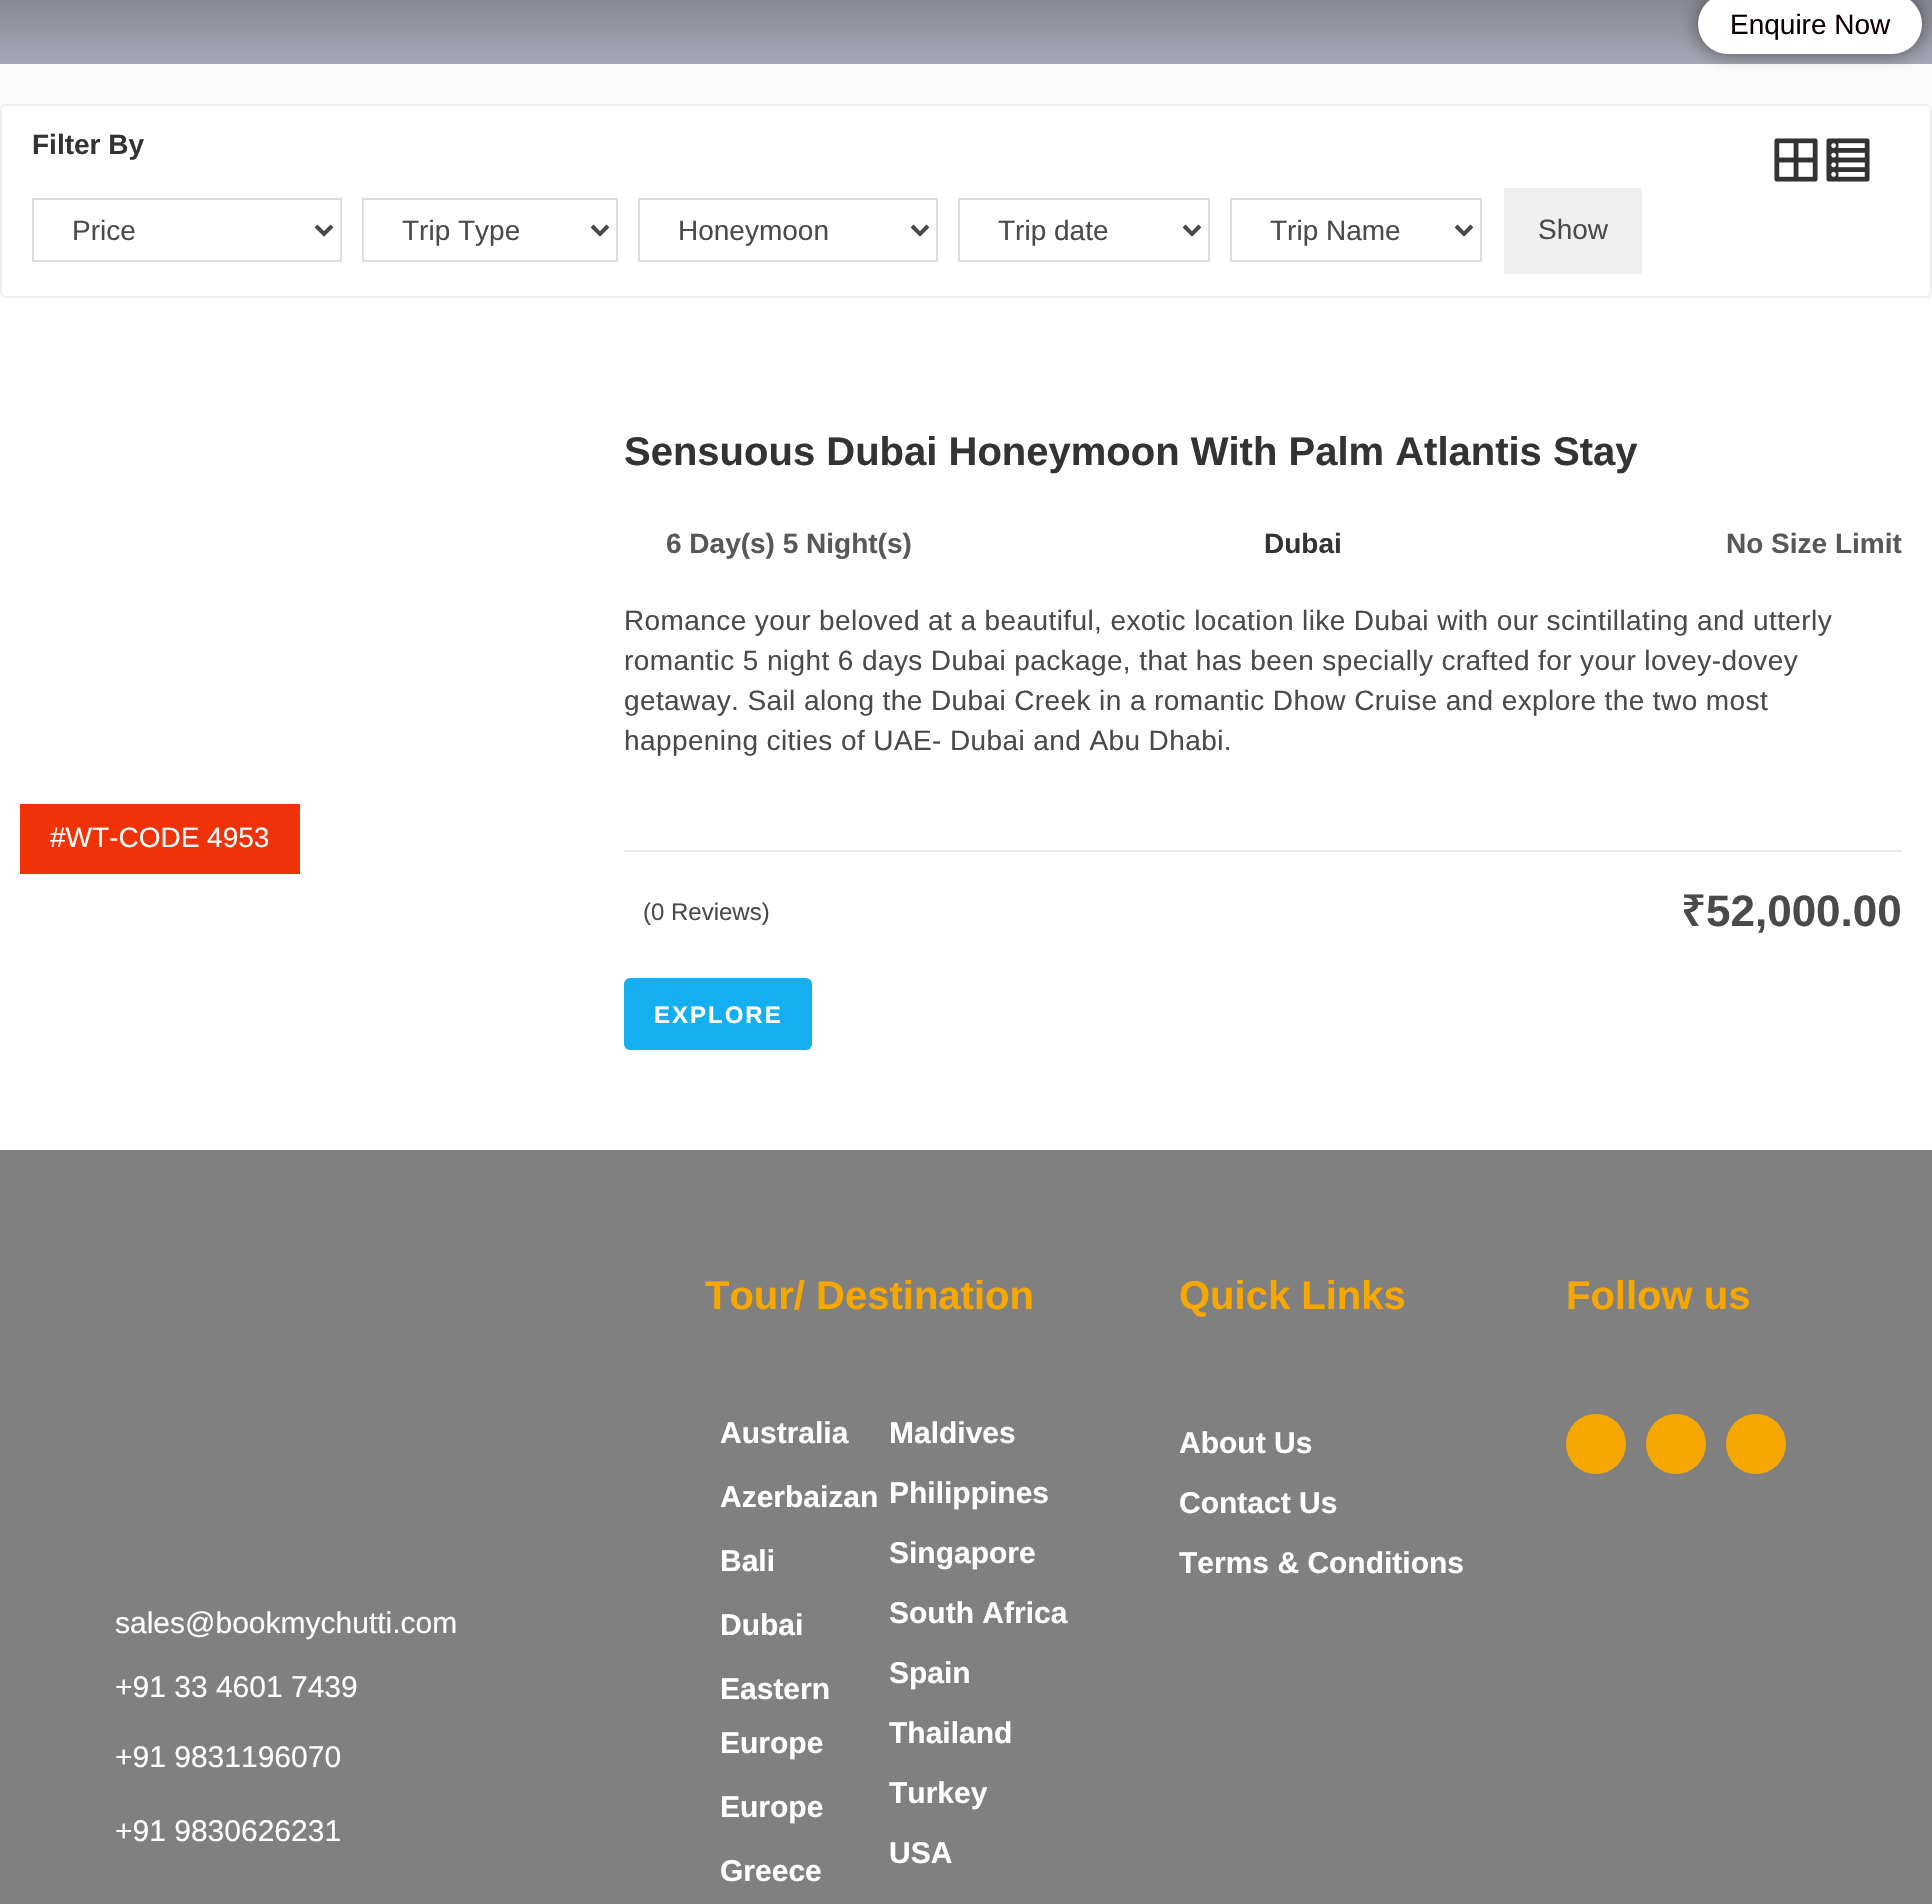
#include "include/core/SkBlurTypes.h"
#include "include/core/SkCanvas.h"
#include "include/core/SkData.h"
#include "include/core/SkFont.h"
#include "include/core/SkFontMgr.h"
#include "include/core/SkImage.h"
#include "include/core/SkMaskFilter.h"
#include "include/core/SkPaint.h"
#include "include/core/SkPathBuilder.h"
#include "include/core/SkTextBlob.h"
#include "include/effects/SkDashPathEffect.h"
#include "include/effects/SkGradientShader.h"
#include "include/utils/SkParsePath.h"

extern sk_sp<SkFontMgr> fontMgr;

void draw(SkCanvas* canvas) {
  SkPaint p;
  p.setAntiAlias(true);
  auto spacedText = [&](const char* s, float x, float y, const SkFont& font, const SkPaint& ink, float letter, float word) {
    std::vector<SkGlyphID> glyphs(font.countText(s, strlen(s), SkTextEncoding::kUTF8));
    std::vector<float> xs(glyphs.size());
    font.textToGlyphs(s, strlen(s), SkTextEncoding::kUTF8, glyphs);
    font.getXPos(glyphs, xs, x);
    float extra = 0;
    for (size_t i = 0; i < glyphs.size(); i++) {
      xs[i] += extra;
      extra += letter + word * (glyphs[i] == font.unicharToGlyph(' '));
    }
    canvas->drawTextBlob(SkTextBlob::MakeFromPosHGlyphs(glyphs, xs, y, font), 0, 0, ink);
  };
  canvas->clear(SK_ColorWHITE);
  {
    const SkColor colors[] = {SkColorSetRGB(43, 43, 43), SkColorSetRGB(167, 168, 182)};
    const float stops[] = {0.02f, 1};
    const SkPoint ends[] = {{966, -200}, {966, 64}};
    p.setShader(SkGradientShader::MakeLinear(ends, colors, stops, 2, SkTileMode::kClamp));
    p.setAlpha(255);
  }
  canvas->drawRect(SkRect::MakeLTRB(0, 0, 1932, 64), p);
  p.setShader(nullptr);
  p.setColor(SkColorSetARGB(128, 0, 0, 0));
  p.setMaskFilter(SkMaskFilter::MakeBlur(kNormal_SkBlurStyle, 10));
  canvas->drawRoundRect(SkRect::MakeLTRB(1698, -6, 1922, 54), 30, 30, p);
  p.setMaskFilter(nullptr);
  p.setColor(SK_ColorWHITE);
  canvas->drawRoundRect(SkRect::MakeLTRB(1698, -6, 1922, 54), 30, 30, p);
  p.setColor(SkColorSetARGB(89, 245, 245, 245));
  canvas->drawRect(SkRect::MakeLTRB(0, 64, 1932, 104), p);
  p.setStyle(SkPaint::kStroke_Style);
  p.setStrokeWidth(2);
  p.setColor(SkColorSetRGB(238, 238, 238));
  canvas->drawRoundRect(SkRect::MakeLTRB(1, 105, 1931, 297), 5, 5, p);
  p.setColor(SkColorSetRGB(221, 221, 221));
  canvas->drawRect(SkRect::MakeLTRB(33, 199, 341, 261), p);
  p.setStrokeWidth(4);
  p.setColor(SkColorSetRGB(74, 74, 74));
  canvas->drawPath(SkPathBuilder().moveTo(316, 226).lineTo(324, 234).lineTo(332, 226).detach(), p);
  p.setStrokeWidth(2);
  p.setColor(SkColorSetRGB(221, 221, 221));
  canvas->drawRect(SkRect::MakeLTRB(363, 199, 617, 261), p);
  p.setStrokeWidth(4);
  p.setColor(SkColorSetRGB(74, 74, 74));
  canvas->drawPath(SkPathBuilder().moveTo(592, 226).lineTo(600, 234).lineTo(608, 226).detach(), p);
  p.setStrokeWidth(2);
  p.setColor(SkColorSetRGB(221, 221, 221));
  canvas->drawRect(SkRect::MakeLTRB(639, 199, 937, 261), p);
  p.setStrokeWidth(4);
  p.setColor(SkColorSetRGB(74, 74, 74));
  canvas->drawPath(SkPathBuilder().moveTo(912, 226).lineTo(920, 234).lineTo(928, 226).detach(), p);
  p.setStrokeWidth(2);
  p.setColor(SkColorSetRGB(221, 221, 221));
  canvas->drawRect(SkRect::MakeLTRB(959, 199, 1209, 261), p);
  p.setStrokeWidth(4);
  p.setColor(SkColorSetRGB(74, 74, 74));
  canvas->drawPath(SkPathBuilder().moveTo(1184, 226).lineTo(1192, 234).lineTo(1200, 226).detach(), p);
  p.setStrokeWidth(2);
  p.setColor(SkColorSetRGB(221, 221, 221));
  canvas->drawRect(SkRect::MakeLTRB(1231, 199, 1481, 261), p);
  p.setStrokeWidth(4);
  p.setColor(SkColorSetRGB(74, 74, 74));
  canvas->drawPath(SkPathBuilder().moveTo(1456, 226).lineTo(1464, 234).lineTo(1472, 226).detach(), p);
  p.setStyle(SkPaint::kFill_Style);
  p.setColor(SkColorSetRGB(239, 239, 239));
  canvas->drawRect(SkRect::MakeLTRB(1504, 188, 1642, 274), p);
  canvas->drawImageRect(SkImages::DeferredFromEncodedData(SkData::MakeFromFileName("images/1.png")), SkRect::MakeLTRB(1774, 138, 1818, 182), SkSamplingOptions());
  canvas->drawImageRect(SkImages::DeferredFromEncodedData(SkData::MakeFromFileName("images/2.png")), SkRect::MakeLTRB(1826, 138, 1870, 182), SkSamplingOptions());
  p.setColor(SkColorSetRGB(240, 50, 8));
  canvas->drawRect(SkRect::MakeLTRB(20, 804, 300, 874), p);
  p.setColor(SkColorSetRGB(233, 233, 233));
  canvas->drawRect(SkRect::MakeLTRB(624, 850, 1902, 852), p);
  p.setColor(SkColorSetRGB(19, 175, 240));
  canvas->drawRoundRect(SkRect::MakeLTRB(624, 978, 812, 1050), 6, 6, p);
  p.setColor(SkColorSetRGB(128, 128, 128));
  canvas->drawRect(SkRect::MakeLTRB(0, 1150, 1932, 1904), p);
  p.setColor(SkColorSetRGB(246, 168, 0));
  canvas->drawCircle(1596, 1444, 30, p);
  canvas->drawCircle(1676, 1444, 30, p);
  canvas->drawCircle(1756, 1444, 30, p);
  SkFont font1(fontMgr->matchFamilyStyle("Liberation Sans", SkFontStyle::Normal()), 28);
  font1.setSubpixel(true);
  p.setColor(SkColorSetRGB(14, 0, 0));
  canvas->drawString("Enquire Now", 1730, 34, font1, p);
  SkFont font2(fontMgr->matchFamilyStyle("Liberation Sans", SkFontStyle::Bold()), 28);
  font2.setSubpixel(true);
  p.setColor(SkColorSetRGB(51, 51, 51));
  canvas->drawString("Filter By", 32, 154, font2, p);
  p.setColor(SkColorSetRGB(74, 74, 74));
  canvas->drawString("Price", 72, 240, font1, p);
  canvas->drawString("Trip Type", 402, 240, font1, p);
  canvas->drawString("Honeymoon", 678, 240, font1, p);
  canvas->drawString("Trip date", 998, 240, font1, p);
  canvas->drawString("Trip Name", 1270, 240, font1, p);
  canvas->drawString("Show", 1538, 239, font1, p);
  p.setColor(SK_ColorWHITE);
  canvas->drawString("#WT-CODE 4953", 50, 847, font1, p);
  SkFont font3(fontMgr->matchFamilyStyle("Liberation Sans", SkFontStyle::Bold()), 40);
  font3.setSubpixel(true);
  p.setColor(SkColorSetRGB(51, 51, 51));
  canvas->drawString("Sensuous Dubai Honeymoon With Palm Atlantis Stay", 624, 465, font3, p);
  p.setColor(SkColorSetRGB(88, 88, 88));
  canvas->drawString("6 Day(s) 5 Night(s)", 666, 553, font2, p);
  p.setColor(SkColorSetRGB(51, 51, 51));
  canvas->drawString("Dubai", 1264, 553, font2, p);
  p.setColor(SkColorSetRGB(88, 88, 88));
  canvas->drawString("No Size Limit", 1726, 553, font2, p);
  p.setColor(SkColorSetRGB(74, 74, 74));
  spacedText("Romance your beloved at a beautiful, exotic location like Dubai with our scintillating and utterly", 624, 630, font1, p, 0.4f, 0);
  spacedText("romantic 5 night 6 days Dubai package, that has been specially crafted for your lovey-dovey", 624, 670, font1, p, 0.4f, 0);
  spacedText("getaway. Sail along the Dubai Creek in a romantic Dhow Cruise and explore the two most", 624, 710, font1, p, 0.4f, 0);
  spacedText("happening cities of UAE- Dubai and Abu Dhabi.", 624, 750, font1, p, 0.4f, 0);
  SkFont font4(fontMgr->matchFamilyStyle("Liberation Sans", SkFontStyle::Normal()), 24);
  font4.setSubpixel(true);
  canvas->drawString("(0 Reviews)", 643, 920, font4, p);
  SkFont font5(fontMgr->matchFamilyStyle("Noto Sans", SkFontStyle(600, SkFontStyle::kNormal_Width, SkFontStyle::kUpright_Slant)), 44);
  font5.setSubpixel(true);
  canvas->drawString("₹", 1681, 926, font5, p);
  SkFont font6(fontMgr->matchFamilyStyle("Liberation Sans", SkFontStyle::Bold()), 44);
  font6.setSubpixel(true);
  canvas->drawString("52,000.00", 1706, 926, font6, p);
  SkFont font7(fontMgr->matchFamilyStyle("Liberation Sans", SkFontStyle::Bold()), 24);
  font7.setSubpixel(true);
  p.setColor(SK_ColorWHITE);
  spacedText("EXPLORE", 654, 1023, font7, p, 2, 0);
  p.setColor(SkColorSetRGB(246, 168, 0));
  canvas->drawString("Tour/ Destination", 705, 1309, font3, p);
  SkFont font8(fontMgr->matchFamilyStyle("Liberation Sans", SkFontStyle::Bold()), 30);
  font8.setSubpixel(true);
  p.setColor(SK_ColorWHITE);
  canvas->drawString("Australia", 720, 1443, font8, p);
  canvas->drawString("Azerbaizan", 720, 1507, font8, p);
  canvas->drawString("Bali", 720, 1571, font8, p);
  canvas->drawString("Dubai", 720, 1635, font8, p);
  canvas->drawString("Eastern", 720, 1699, font8, p);
  canvas->drawString("Europe", 720, 1753, font8, p);
  canvas->drawString("Europe", 720, 1817, font8, p);
  canvas->drawString("Greece", 720, 1881, font8, p);
  canvas->drawString("Maldives", 889, 1443, font8, p);
  canvas->drawString("Philippines", 889, 1503, font8, p);
  canvas->drawString("Singapore", 889, 1563, font8, p);
  canvas->drawString("South Africa", 889, 1623, font8, p);
  canvas->drawString("Spain", 889, 1683, font8, p);
  canvas->drawString("Thailand", 889, 1743, font8, p);
  canvas->drawString("Turkey", 889, 1803, font8, p);
  canvas->drawString("USA", 889, 1863, font8, p);
  p.setColor(SkColorSetRGB(246, 168, 0));
  canvas->drawString("Quick Links", 1179, 1309, font3, p);
  p.setColor(SK_ColorWHITE);
  canvas->drawString("About Us", 1179, 1453, font8, p);
  canvas->drawString("Contact Us", 1179, 1513, font8, p);
  canvas->drawString("Terms & Conditions", 1179, 1573, font8, p);
  p.setColor(SkColorSetRGB(246, 168, 0));
  canvas->drawString("Follow us", 1566, 1309, font3, p);
  SkFont font9(fontMgr->matchFamilyStyle("Liberation Sans", SkFontStyle::Normal()), 30);
  font9.setSubpixel(true);
  p.setColor(SK_ColorWHITE);
  canvas->drawString("sales@bookmychutti.com", 115, 1633, font9, p);
  canvas->drawString("+91 33 4601 7439", 115, 1697, font9, p);
  canvas->drawString("+91 9831196070", 115, 1767, font9, p);
  canvas->drawString("+91 9830626231", 115, 1841, font9, p);
}
